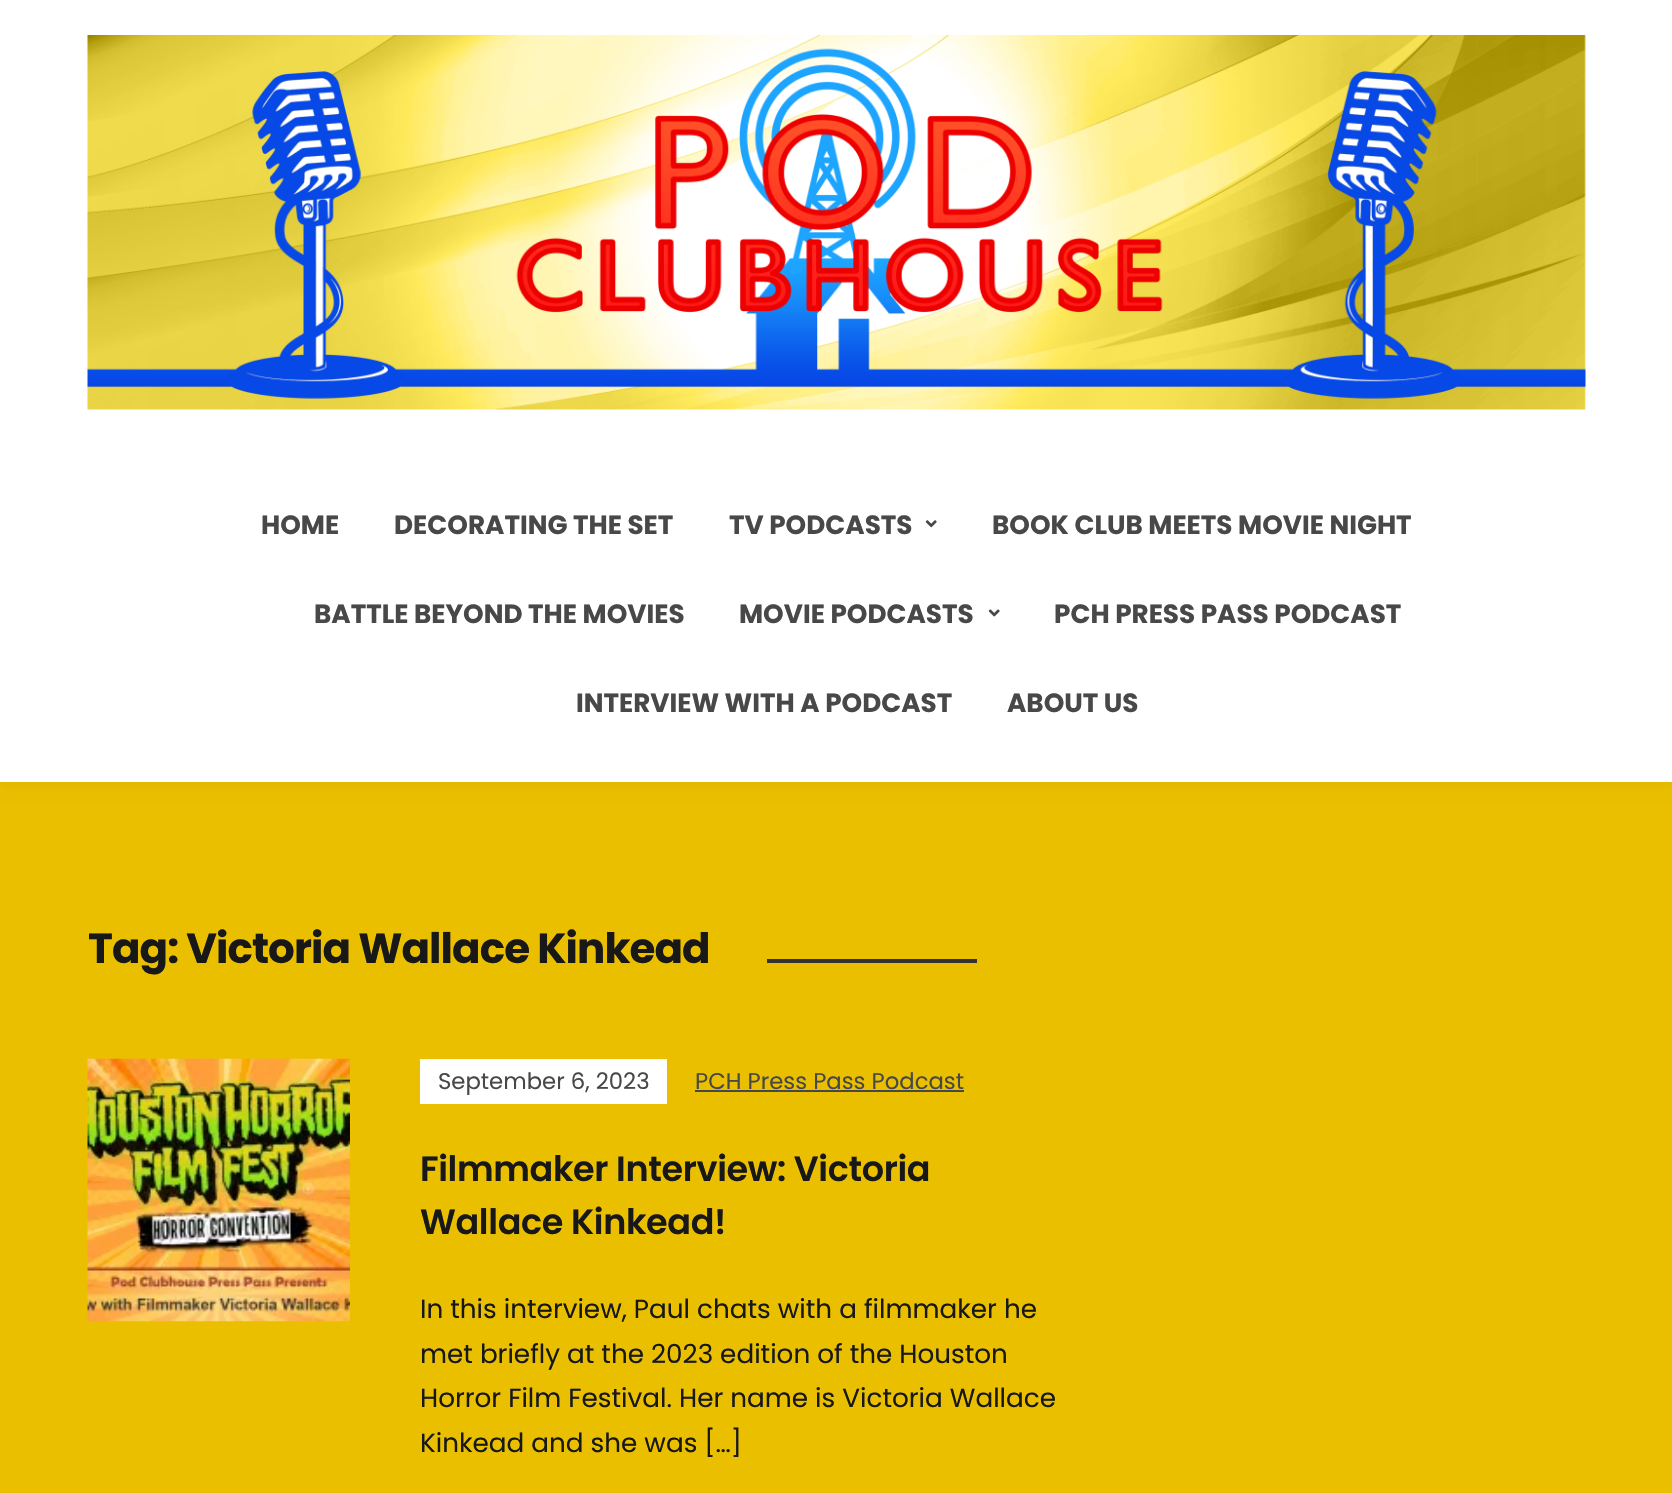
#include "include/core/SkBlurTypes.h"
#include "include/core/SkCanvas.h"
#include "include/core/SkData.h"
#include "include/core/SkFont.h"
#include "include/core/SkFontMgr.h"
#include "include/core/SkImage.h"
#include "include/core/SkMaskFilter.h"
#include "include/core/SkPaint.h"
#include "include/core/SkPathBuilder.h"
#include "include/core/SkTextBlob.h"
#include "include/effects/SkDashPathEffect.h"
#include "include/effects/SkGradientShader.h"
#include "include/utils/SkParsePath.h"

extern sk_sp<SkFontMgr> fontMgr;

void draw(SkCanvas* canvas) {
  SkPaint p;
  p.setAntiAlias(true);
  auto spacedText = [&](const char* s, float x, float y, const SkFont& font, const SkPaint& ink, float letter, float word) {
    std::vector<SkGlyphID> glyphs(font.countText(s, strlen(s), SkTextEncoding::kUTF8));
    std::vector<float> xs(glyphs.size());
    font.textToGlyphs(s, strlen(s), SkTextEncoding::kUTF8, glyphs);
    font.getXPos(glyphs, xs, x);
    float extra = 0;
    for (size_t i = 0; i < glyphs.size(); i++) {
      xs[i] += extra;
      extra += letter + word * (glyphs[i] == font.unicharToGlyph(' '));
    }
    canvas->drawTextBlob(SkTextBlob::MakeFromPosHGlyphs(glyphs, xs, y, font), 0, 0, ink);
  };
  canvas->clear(SkColorSetRGB(234, 191, 0));
  p.setColor(SkColorSetARGB(18, 0, 0, 0));
  p.setMaskFilter(SkMaskFilter::MakeBlur(kNormal_SkBlurStyle, 7));
  canvas->drawRect(SkRect::MakeLTRB(0, 0, 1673, 782), p);
  p.setMaskFilter(nullptr);
  p.setColor(SK_ColorWHITE);
  canvas->drawRect(SkRect::MakeLTRB(0, 0, 1672, 782), p);
  canvas->drawImageRect(SkImages::DeferredFromEncodedData(SkData::MakeFromFileName("images/1.png")), SkRect::MakeLTRB(87, 35, 1586, 410), SkSamplingOptions());
  canvas->drawImageRect(SkImages::DeferredFromEncodedData(SkData::MakeFromFileName("images/2.png")), SkRect::MakeLTRB(925, 520, 937, 528), SkSamplingOptions());
  canvas->drawImageRect(SkImages::DeferredFromEncodedData(SkData::MakeFromFileName("images/3.png")), SkRect::MakeLTRB(988, 609, 1000, 617), SkSamplingOptions());
  p.setColor(SkColorSetRGB(51, 51, 51));
  canvas->drawRect(SkRect::MakeLTRB(767, 959, 977, 963), p);
  canvas->drawImageRect(SkImages::DeferredFromEncodedData(SkData::MakeFromFileName("images/4.png")), SkRect::MakeLTRB(87, 1058, 350, 1322), SkSamplingOptions());
  p.setColor(SK_ColorWHITE);
  canvas->drawRect(SkRect::MakeLTRB(420, 1059, 667, 1104), p);
  p.setColor(SkColorSetRGB(72, 72, 72));
  canvas->drawRect(SkRect::MakeLTRB(695, 1090, 964, 1092), p);
  SkFont font1(fontMgr->matchFamilyStyle("Poppins", SkFontStyle::Bold()), 26.25f);
  font1.setSubpixel(true);
  canvas->drawString("HOME", 261, 534, font1, p);
  canvas->drawString("DECORATING THE SET", 394, 534, font1, p);
  canvas->drawString("TV PODCASTS", 729, 534, font1, p);
  canvas->drawString("BOOK CLUB MEETS MOVIE NIGHT", 992, 534, font1, p);
  canvas->drawString("BATTLE BEYOND THE MOVIES", 314, 623, font1, p);
  canvas->drawString("MOVIE PODCASTS", 739, 623, font1, p);
  canvas->drawString("PCH PRESS PASS PODCAST", 1054, 623, font1, p);
  canvas->drawString("INTERVIEW WITH A PODCAST", 576, 712, font1, p);
  canvas->drawString("ABOUT US", 1007, 712, font1, p);
  SkFont font2(fontMgr->matchFamilyStyle("Poppins", SkFontStyle::Bold()), 42);
  font2.setSubpixel(true);
  p.setColor(SkColorSetRGB(24, 24, 24));
  spacedText("Tag: Victoria Wallace Kinkead", 88, 963, font2, p, -0.9f, 0);
  SkFont font3(fontMgr->matchFamilyStyle("Poppins", SkFontStyle::Normal()), 22.75f);
  font3.setSubpixel(true);
  p.setColor(SkColorSetRGB(72, 72, 72));
  canvas->drawString("September 6, 2023", 438, 1089, font3, p);
  canvas->drawString("PCH Press Pass Podcast", 695, 1089, font3, p);
  SkFont font4(fontMgr->matchFamilyStyle("Poppins", SkFontStyle(600, SkFontStyle::kNormal_Width, SkFontStyle::kUpright_Slant)), 35);
  font4.setSubpixel(true);
  p.setColor(SkColorSetRGB(24, 24, 24));
  spacedText("Filmmaker Interview: Victoria", 420, 1181, font4, p, -0.35f, 0);
  spacedText("Wallace Kinkead!", 420, 1234, font4, p, -0.35f, 0);
  SkFont font5(fontMgr->matchFamilyStyle("Poppins", SkFontStyle::Normal()), 26.25f);
  font5.setSubpixel(true);
  canvas->drawString("In this interview, Paul chats with a filmmaker he", 420, 1318, font5, p);
  canvas->drawString("met briefly at the 2023 edition of the Houston", 420, 1363, font5, p);
  canvas->drawString("Horror Film Festival. Her name is Victoria Wallace", 420, 1407, font5, p);
  canvas->drawString("Kinkead and she was […]", 420, 1452, font5, p);
}
